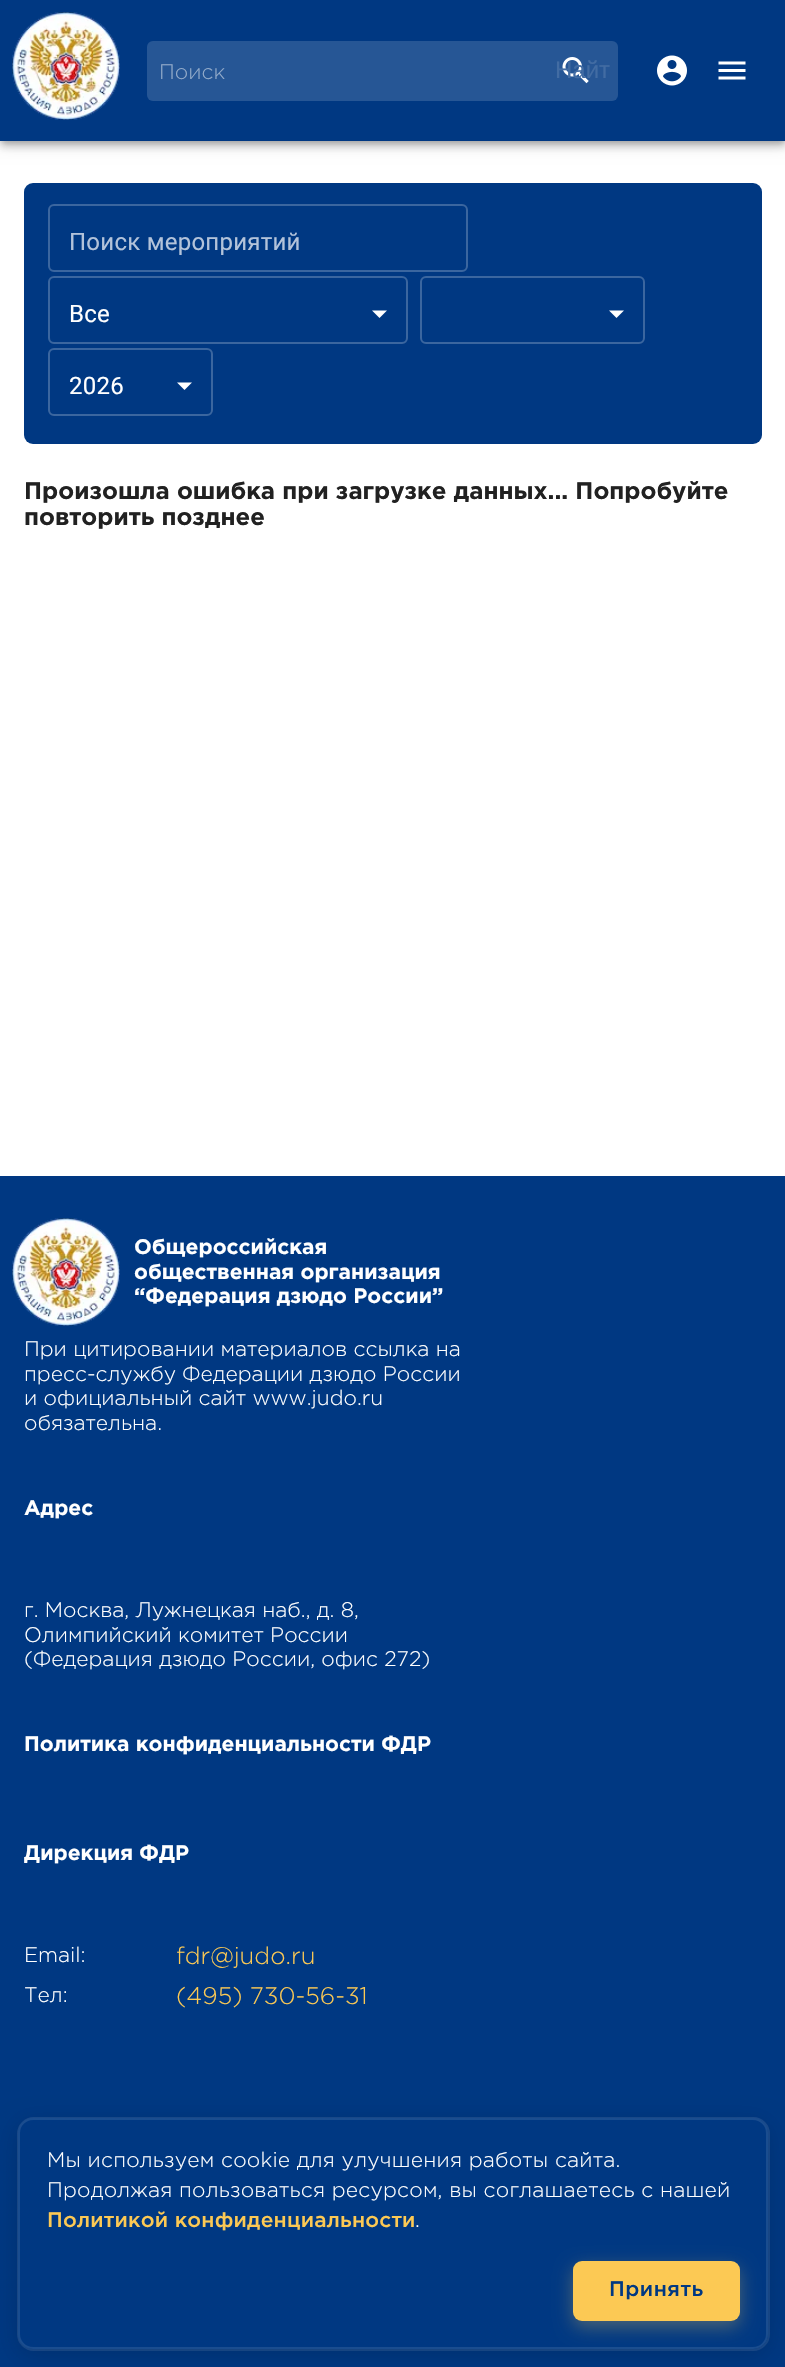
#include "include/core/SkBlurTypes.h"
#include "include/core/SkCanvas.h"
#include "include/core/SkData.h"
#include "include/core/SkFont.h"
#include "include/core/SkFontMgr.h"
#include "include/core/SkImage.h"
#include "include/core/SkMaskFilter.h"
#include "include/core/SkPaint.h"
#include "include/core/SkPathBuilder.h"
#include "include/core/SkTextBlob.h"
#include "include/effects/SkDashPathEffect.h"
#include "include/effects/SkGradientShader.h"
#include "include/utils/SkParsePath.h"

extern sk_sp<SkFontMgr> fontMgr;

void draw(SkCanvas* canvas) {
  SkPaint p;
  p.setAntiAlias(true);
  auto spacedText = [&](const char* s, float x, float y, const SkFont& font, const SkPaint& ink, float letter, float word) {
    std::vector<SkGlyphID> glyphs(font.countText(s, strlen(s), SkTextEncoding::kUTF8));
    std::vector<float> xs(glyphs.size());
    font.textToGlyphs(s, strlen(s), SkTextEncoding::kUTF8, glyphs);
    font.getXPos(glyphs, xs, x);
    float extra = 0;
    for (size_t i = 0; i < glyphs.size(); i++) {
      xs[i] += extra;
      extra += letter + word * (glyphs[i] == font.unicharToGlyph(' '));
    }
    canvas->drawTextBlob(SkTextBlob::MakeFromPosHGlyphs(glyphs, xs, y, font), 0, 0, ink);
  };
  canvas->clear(SK_ColorWHITE);
  p.setColor(SkColorSetARGB(31, 0, 0, 0));
  p.setMaskFilter(SkMaskFilter::MakeBlur(kNormal_SkBlurStyle, 7.5f));
  canvas->drawRect(SkRect::MakeLTRB(0, 2, 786, 143), p);
  p.setMaskFilter(nullptr);
  p.setColor(SkColorSetARGB(36, 0, 0, 0));
  p.setMaskFilter(SkMaskFilter::MakeBlur(kNormal_SkBlurStyle, 4));
  canvas->drawRect(SkRect::MakeLTRB(0, 6, 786, 147), p);
  p.setMaskFilter(nullptr);
  p.setColor(SkColorSetARGB(51, 0, 0, 0));
  p.setMaskFilter(SkMaskFilter::MakeBlur(kNormal_SkBlurStyle, 3));
  canvas->drawRect(SkRect::MakeLTRB(2, 5, 785, 143), p);
  p.setMaskFilter(nullptr);
  p.setColor(SkColorSetRGB(0, 56, 130));
  canvas->drawRect(SkRect::MakeLTRB(0, 0, 785, 141), p);
  canvas->drawImageRect(SkImages::DeferredFromEncodedData(SkData::MakeFromFileName("images/1.png")), SkRect::MakeLTRB(12, 12, 120, 120), SkSamplingOptions());
  p.setColor(SkColorSetRGB(38, 86, 149));
  canvas->drawRoundRect(SkRect::MakeLTRB(147, 41, 618, 101), 6, 6, p);
  canvas->drawImageRect(SkImages::DeferredFromEncodedData(SkData::MakeFromFileName("images/2.png")), SkRect::MakeLTRB(562, 57, 589, 84), SkSamplingOptions());
  canvas->drawImageRect(SkImages::DeferredFromEncodedData(SkData::MakeFromFileName("images/3.png")), SkRect::MakeLTRB(657, 55, 687, 86), SkSamplingOptions());
  canvas->drawImageRect(SkImages::DeferredFromEncodedData(SkData::MakeFromFileName("images/4.png")), SkRect::MakeLTRB(718, 61, 746, 80), SkSamplingOptions());
  p.setColor(SkColorSetRGB(0, 56, 130));
  canvas->drawRoundRect(SkRect::MakeLTRB(24, 183, 762, 444), 9, 9, p);
  p.setStyle(SkPaint::kStroke_Style);
  p.setStrokeWidth(2);
  p.setColor(SkColorSetRGB(59, 102, 159));
  canvas->drawRoundRect(SkRect::MakeLTRB(49, 205, 467, 271), 5, 5, p);
  p.setStyle(SkPaint::kFill_Style);
  p.setColor(SK_ColorWHITE);
  canvas->drawPath(SkPathBuilder().moveTo(372, 310.5f).lineTo(379.5f, 318).lineTo(387, 310.5f).close().detach(), p);
  p.setStyle(SkPaint::kStroke_Style);
  p.setColor(SkColorSetRGB(59, 102, 159));
  canvas->drawRoundRect(SkRect::MakeLTRB(49, 277, 407, 343), 5, 5, p);
  p.setStyle(SkPaint::kFill_Style);
  p.setColor(SK_ColorWHITE);
  canvas->drawPath(SkPathBuilder().moveTo(609, 310.5f).lineTo(616.5f, 318).lineTo(624, 310.5f).close().detach(), p);
  p.setStyle(SkPaint::kStroke_Style);
  p.setColor(SkColorSetRGB(59, 102, 159));
  canvas->drawRoundRect(SkRect::MakeLTRB(421, 277, 644, 343), 5, 5, p);
  p.setStyle(SkPaint::kFill_Style);
  p.setColor(SK_ColorWHITE);
  canvas->drawPath(SkPathBuilder().moveTo(177, 382.5f).lineTo(184.5f, 390).lineTo(192, 382.5f).close().detach(), p);
  p.setStyle(SkPaint::kStroke_Style);
  p.setColor(SkColorSetRGB(59, 102, 159));
  canvas->drawRoundRect(SkRect::MakeLTRB(49, 349, 212, 415), 5, 5, p);
  p.setStyle(SkPaint::kFill_Style);
  p.setColor(SkColorSetRGB(0, 56, 130));
  canvas->drawRect(SkRect::MakeLTRB(0, 1176, 785, 2367), p);
  canvas->drawImageRect(SkImages::DeferredFromEncodedData(SkData::MakeFromFileName("images/5.png")), SkRect::MakeLTRB(12, 1218, 120, 1326), SkSamplingOptions());
  p.setStyle(SkPaint::kStroke_Style);
  p.setColor(SkColorSetRGB(26, 76, 143));
  canvas->drawRoundRect(SkRect::MakeLTRB(18, 2118, 769, 2350), 16, 16, p);
  p.setStyle(SkPaint::kFill_Style);
  p.setColor(SkColorSetARGB(38, 0, 0, 0));
  p.setMaskFilter(SkMaskFilter::MakeBlur(kNormal_SkBlurStyle, 12));
  canvas->drawRoundRect(SkRect::MakeLTRB(18, 2124, 768, 2355), 15, 15, p);
  p.setMaskFilter(nullptr);
  p.setColor(SkColorSetRGB(0, 56, 130));
  canvas->drawRoundRect(SkRect::MakeLTRB(18, 2118, 768, 2349), 15, 15, p);
  p.setStyle(SkPaint::kStroke_Style);
  p.setColor(SkColorSetARGB(26, 255, 255, 255));
  canvas->drawRoundRect(SkRect::MakeLTRB(19, 2119, 767, 2348), 14, 14, p);
  p.setStyle(SkPaint::kFill_Style);
  p.setColor(SkColorSetARGB(77, 252, 201, 84));
  p.setMaskFilter(SkMaskFilter::MakeBlur(kNormal_SkBlurStyle, 9));
  canvas->drawRoundRect(SkRect::MakeLTRB(573, 2267, 740, 2327), 9, 9, p);
  p.setMaskFilter(nullptr);
  p.setColor(SkColorSetRGB(252, 201, 84));
  canvas->drawRoundRect(SkRect::MakeLTRB(573, 2261, 740, 2321), 9, 9, p);
  SkFont font1(fontMgr->matchFamilyStyle("Gotham", SkFontStyle(300, SkFontStyle::kNormal_Width, SkFontStyle::kUpright_Slant)), 21);
  font1.setSubpixel(true);
  p.setColor(SkColorSetRGB(147, 171, 202));
  canvas->drawString("Поиск", 159, 79, font1, p);
  SkFont font2(fontMgr->matchFamilyStyle("Liberation Sans", SkFontStyle::Normal()), 24);
  font2.setSubpixel(true);
  p.setColor(SkColorSetRGB(66, 108, 163));
  canvas->drawString("Найт", 555, 78, font2, p);
  SkFont font3(fontMgr->matchFamilyStyle("Roboto", SkFontStyle::Normal()), 24);
  font3.setSubpixel(true);
  p.setColor(SkColorSetRGB(179, 195, 218));
  spacedText("Поиск мероприятий", 69, 250, font3, p, 0.25f, 0);
  p.setColor(SK_ColorWHITE);
  spacedText("Все", 69, 322, font3, p, 0.25f, 0);
  spacedText("2026", 69, 394, font3, p, 0.25f, 0);
  SkFont font4(fontMgr->matchFamilyStyle("Gotham", SkFontStyle::Bold()), 24);
  font4.setSubpixel(true);
  p.setColor(SkColorSetRGB(33, 33, 33));
  canvas->drawString("Произошла ошибка при загрузке данных... Попробуйте", 24, 499, font4, p);
  canvas->drawString("повторить позднее", 24, 525, font4, p);
  SkFont font5(fontMgr->matchFamilyStyle("Gotham", SkFontStyle::Bold()), 21);
  font5.setSubpixel(true);
  p.setColor(SK_ColorWHITE);
  canvas->drawString("Общероссийская", 134, 1254, font5, p);
  canvas->drawString("общественная организация", 134, 1279, font5, p);
  canvas->drawString("“Федерация дзюдо России”", 134, 1303, font5, p);
  canvas->drawString("При цитировании материалов ссылка на", 24, 1356, font1, p);
  canvas->drawString("пресс-службу Федерации дзюдо России", 24, 1381, font1, p);
  canvas->drawString("и официальный сайт www.judo.ru", 24, 1405, font1, p);
  canvas->drawString("обязательна.", 24, 1430, font1, p);
  canvas->drawString("Адрес", 24, 1515, font5, p);
  canvas->drawString("г. Москва, Лужнецкая наб., д. 8,", 24, 1617, font1, p);
  canvas->drawString("Олимпийский комитет России", 24, 1642, font1, p);
  canvas->drawString("(Федерация дзюдо России, офис 272)", 24, 1666, font1, p);
  canvas->drawString("Политика конфиденциальности ФДР", 24, 1751, font5, p);
  canvas->drawString("Дирекция ФДР", 24, 1860, font5, p);
  canvas->drawString("Email:", 24, 1962, font1, p);
  SkFont font6(fontMgr->matchFamilyStyle("Gotham", SkFontStyle(300, SkFontStyle::kNormal_Width, SkFontStyle::kUpright_Slant)), 24);
  font6.setSubpixel(true);
  p.setColor(SkColorSetRGB(252, 201, 84));
  canvas->drawString("fdr@judo.ru", 176, 1964, font6, p);
  p.setColor(SK_ColorWHITE);
  canvas->drawString("Тел:", 24, 2002, font1, p);
  p.setColor(SkColorSetRGB(252, 201, 84));
  canvas->drawString("(495) 730-56-31", 176, 2004, font6, p);
  p.setColor(SK_ColorWHITE);
  spacedText("Мы используем cookie для улучшения работы сайта.", 47, 2167, font1, p, 0.2f, 0);
  spacedText("Продолжая пользоваться ресурсом, вы соглашаетесь с нашей", 47, 2197, font1, p, 0.2f, 0);
  SkFont font7(fontMgr->matchFamilyStyle("Gotham", SkFontStyle(500, SkFontStyle::kNormal_Width, SkFontStyle::kUpright_Slant)), 21);
  font7.setSubpixel(true);
  p.setColor(SkColorSetRGB(252, 201, 84));
  spacedText("Политикой конфиденциальности", 47, 2227, font7, p, 0.2f, 0);
  p.setColor(SK_ColorWHITE);
  spacedText(".", 415, 2227, font1, p, 0.2f, 0);
  p.setColor(SkColorSetRGB(0, 56, 130));
  spacedText("Принять", 609, 2296, font7, p, 0.5f, 0);
}
